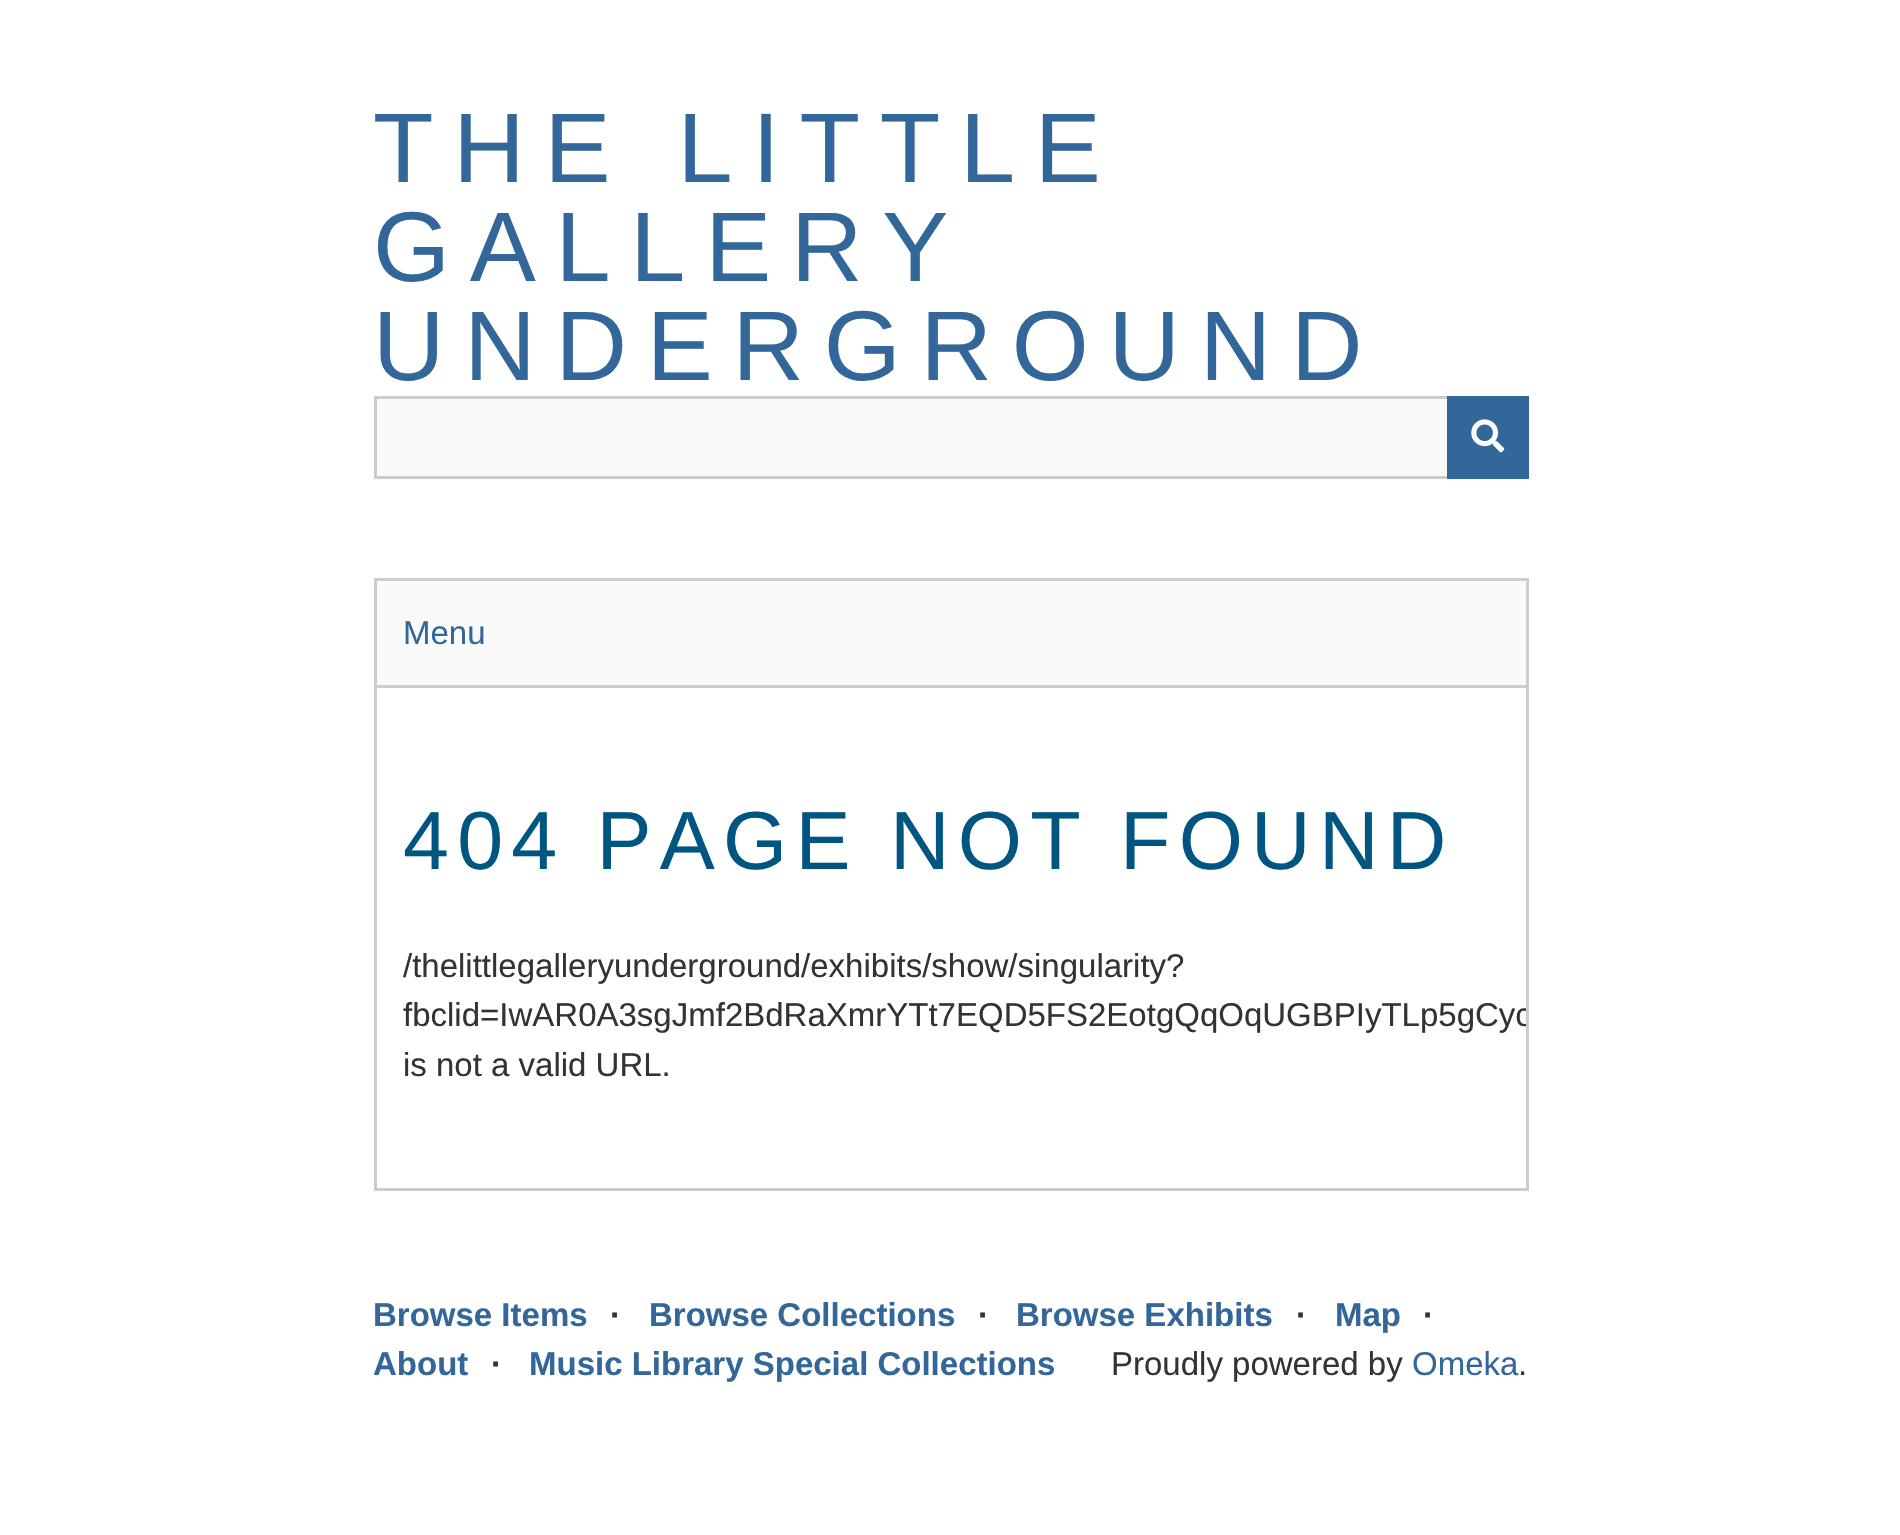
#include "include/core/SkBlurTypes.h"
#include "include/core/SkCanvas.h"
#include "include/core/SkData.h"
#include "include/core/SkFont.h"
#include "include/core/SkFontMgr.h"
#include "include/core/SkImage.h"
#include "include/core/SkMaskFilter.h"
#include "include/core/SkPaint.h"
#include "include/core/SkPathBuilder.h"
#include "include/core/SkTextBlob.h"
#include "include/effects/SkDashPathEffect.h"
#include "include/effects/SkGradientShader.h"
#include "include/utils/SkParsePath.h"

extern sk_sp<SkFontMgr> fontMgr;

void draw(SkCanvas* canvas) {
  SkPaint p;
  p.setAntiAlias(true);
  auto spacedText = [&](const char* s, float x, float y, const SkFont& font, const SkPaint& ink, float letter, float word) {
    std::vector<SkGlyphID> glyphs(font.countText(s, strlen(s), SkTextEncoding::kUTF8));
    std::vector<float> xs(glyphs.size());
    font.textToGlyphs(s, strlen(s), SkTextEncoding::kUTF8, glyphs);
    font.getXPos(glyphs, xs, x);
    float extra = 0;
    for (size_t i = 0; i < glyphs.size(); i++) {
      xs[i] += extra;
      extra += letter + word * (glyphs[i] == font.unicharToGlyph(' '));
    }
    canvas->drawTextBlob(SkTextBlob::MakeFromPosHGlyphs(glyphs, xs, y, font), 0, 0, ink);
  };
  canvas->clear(SK_ColorWHITE);
  p.setColor(SkColorSetRGB(250, 250, 250));
  canvas->drawRect(SkRect::MakeLTRB(377, 399, 1447, 476), p);
  p.setStyle(SkPaint::kStroke_Style);
  p.setStrokeWidth(3);
  p.setColor(SkColorSetRGB(204, 204, 204));
  canvas->drawRect(SkRect::MakeLTRB(375.5f, 397.5f, 1527.5f, 477.5f), p);
  p.setStyle(SkPaint::kFill_Style);
  p.setColor(SkColorSetRGB(51, 102, 153));
  canvas->drawRect(SkRect::MakeLTRB(1447, 396, 1529, 479), p);
  canvas->drawImageRect(SkImages::DeferredFromEncodedData(SkData::MakeFromFileName("images/1.png")), SkRect::MakeLTRB(1471, 419, 1505, 453), SkSamplingOptions());
  p.setColor(SkColorSetRGB(250, 250, 250));
  canvas->drawRect(SkRect::MakeLTRB(377, 581, 1526, 685), p);
  p.setColor(SkColorSetRGB(204, 204, 204));
  canvas->drawRect(SkRect::MakeLTRB(374, 578, 1529, 581), p);
  canvas->drawRect(SkRect::MakeLTRB(1526, 578, 1529, 685), p);
  canvas->drawRect(SkRect::MakeLTRB(374, 578, 377, 685), p);
  p.setStyle(SkPaint::kStroke_Style);
  canvas->drawRect(SkRect::MakeLTRB(375.5f, 686.5f, 1527.5f, 1189.5f), p);
  SkFont font1(fontMgr->matchFamilyStyle("Liberation Sans", SkFontStyle::Normal()), 99);
  font1.setSubpixel(true);
  p.setStyle(SkPaint::kFill_Style);
  p.setColor(SkColorSetRGB(51, 102, 153));
  spacedText("THE LITTLE", 373, 182, font1, p, 19.75f, 0);
  spacedText("GALLERY", 373, 281, font1, p, 19.75f, 0);
  spacedText("UNDERGROUND", 373, 380, font1, p, 19.75f, 0);
  SkFont font2(fontMgr->matchFamilyStyle("Liberation Sans", SkFontStyle::Normal()), 33);
  font2.setSubpixel(true);
  canvas->drawString("Menu", 403, 644, font2, p);
  SkFont font3(fontMgr->matchFamilyStyle("Liberation Sans", SkFontStyle::Normal()), 82.5f);
  font3.setSubpixel(true);
  p.setColor(SkColorSetRGB(1, 85, 129));
  spacedText("404 PAGE NOT FOUND", 403, 869, font3, p, 8.25f, 0);
  p.setColor(SkColorSetRGB(51, 51, 51));
  canvas->drawString("/thelittlegalleryunderground/exhibits/show/singularity?", 403, 977, font2, p);
  canvas->save();
  canvas->clipRect(SkRect::MakeLTRB(377, 688, 1526, 1188));
  canvas->drawString("fbclid=IwAR0A3sgJmf2BdRaXmrYTt7EQD5FS2EotgQqOqUGBPIyTLp5gCyc", 403, 1026, font2, p);
  canvas->restore();
  canvas->drawString("is not a valid URL.", 403, 1076, font2, p);
  SkFont font4(fontMgr->matchFamilyStyle("Liberation Sans", SkFontStyle::Bold()), 33);
  font4.setSubpixel(true);
  p.setColor(SkColorSetRGB(51, 102, 153));
  canvas->drawString("Browse Items", 373, 1326, font4, p);
  p.setColor(SkColorSetRGB(51, 51, 51));
  canvas->drawString("·", 610, 1326, font4, p);
  p.setColor(SkColorSetRGB(51, 102, 153));
  canvas->drawString("Browse Collections", 649, 1326, font4, p);
  p.setColor(SkColorSetRGB(51, 51, 51));
  canvas->drawString("·", 978, 1326, font4, p);
  p.setColor(SkColorSetRGB(51, 102, 153));
  canvas->drawString("Browse Exhibits", 1016, 1326, font4, p);
  p.setColor(SkColorSetRGB(51, 51, 51));
  canvas->drawString("·", 1296, 1326, font4, p);
  p.setColor(SkColorSetRGB(51, 102, 153));
  canvas->drawString("Map", 1335, 1326, font4, p);
  p.setColor(SkColorSetRGB(51, 51, 51));
  canvas->drawString("·", 1423, 1326, font4, p);
  p.setColor(SkColorSetRGB(51, 102, 153));
  canvas->drawString("About", 373, 1375, font4, p);
  p.setColor(SkColorSetRGB(51, 51, 51));
  canvas->drawString("·", 491, 1375, font4, p);
  p.setColor(SkColorSetRGB(51, 102, 153));
  canvas->drawString("Music Library Special Collections", 529, 1375, font4, p);
  p.setColor(SkColorSetRGB(51, 51, 51));
  canvas->drawString("Proudly powered by", 1111, 1375, font2, p);
  p.setColor(SkColorSetRGB(51, 102, 153));
  canvas->drawString("Omeka", 1412, 1375, font2, p);
  p.setColor(SkColorSetRGB(51, 51, 51));
  canvas->drawString(".", 1518, 1375, font2, p);
}
